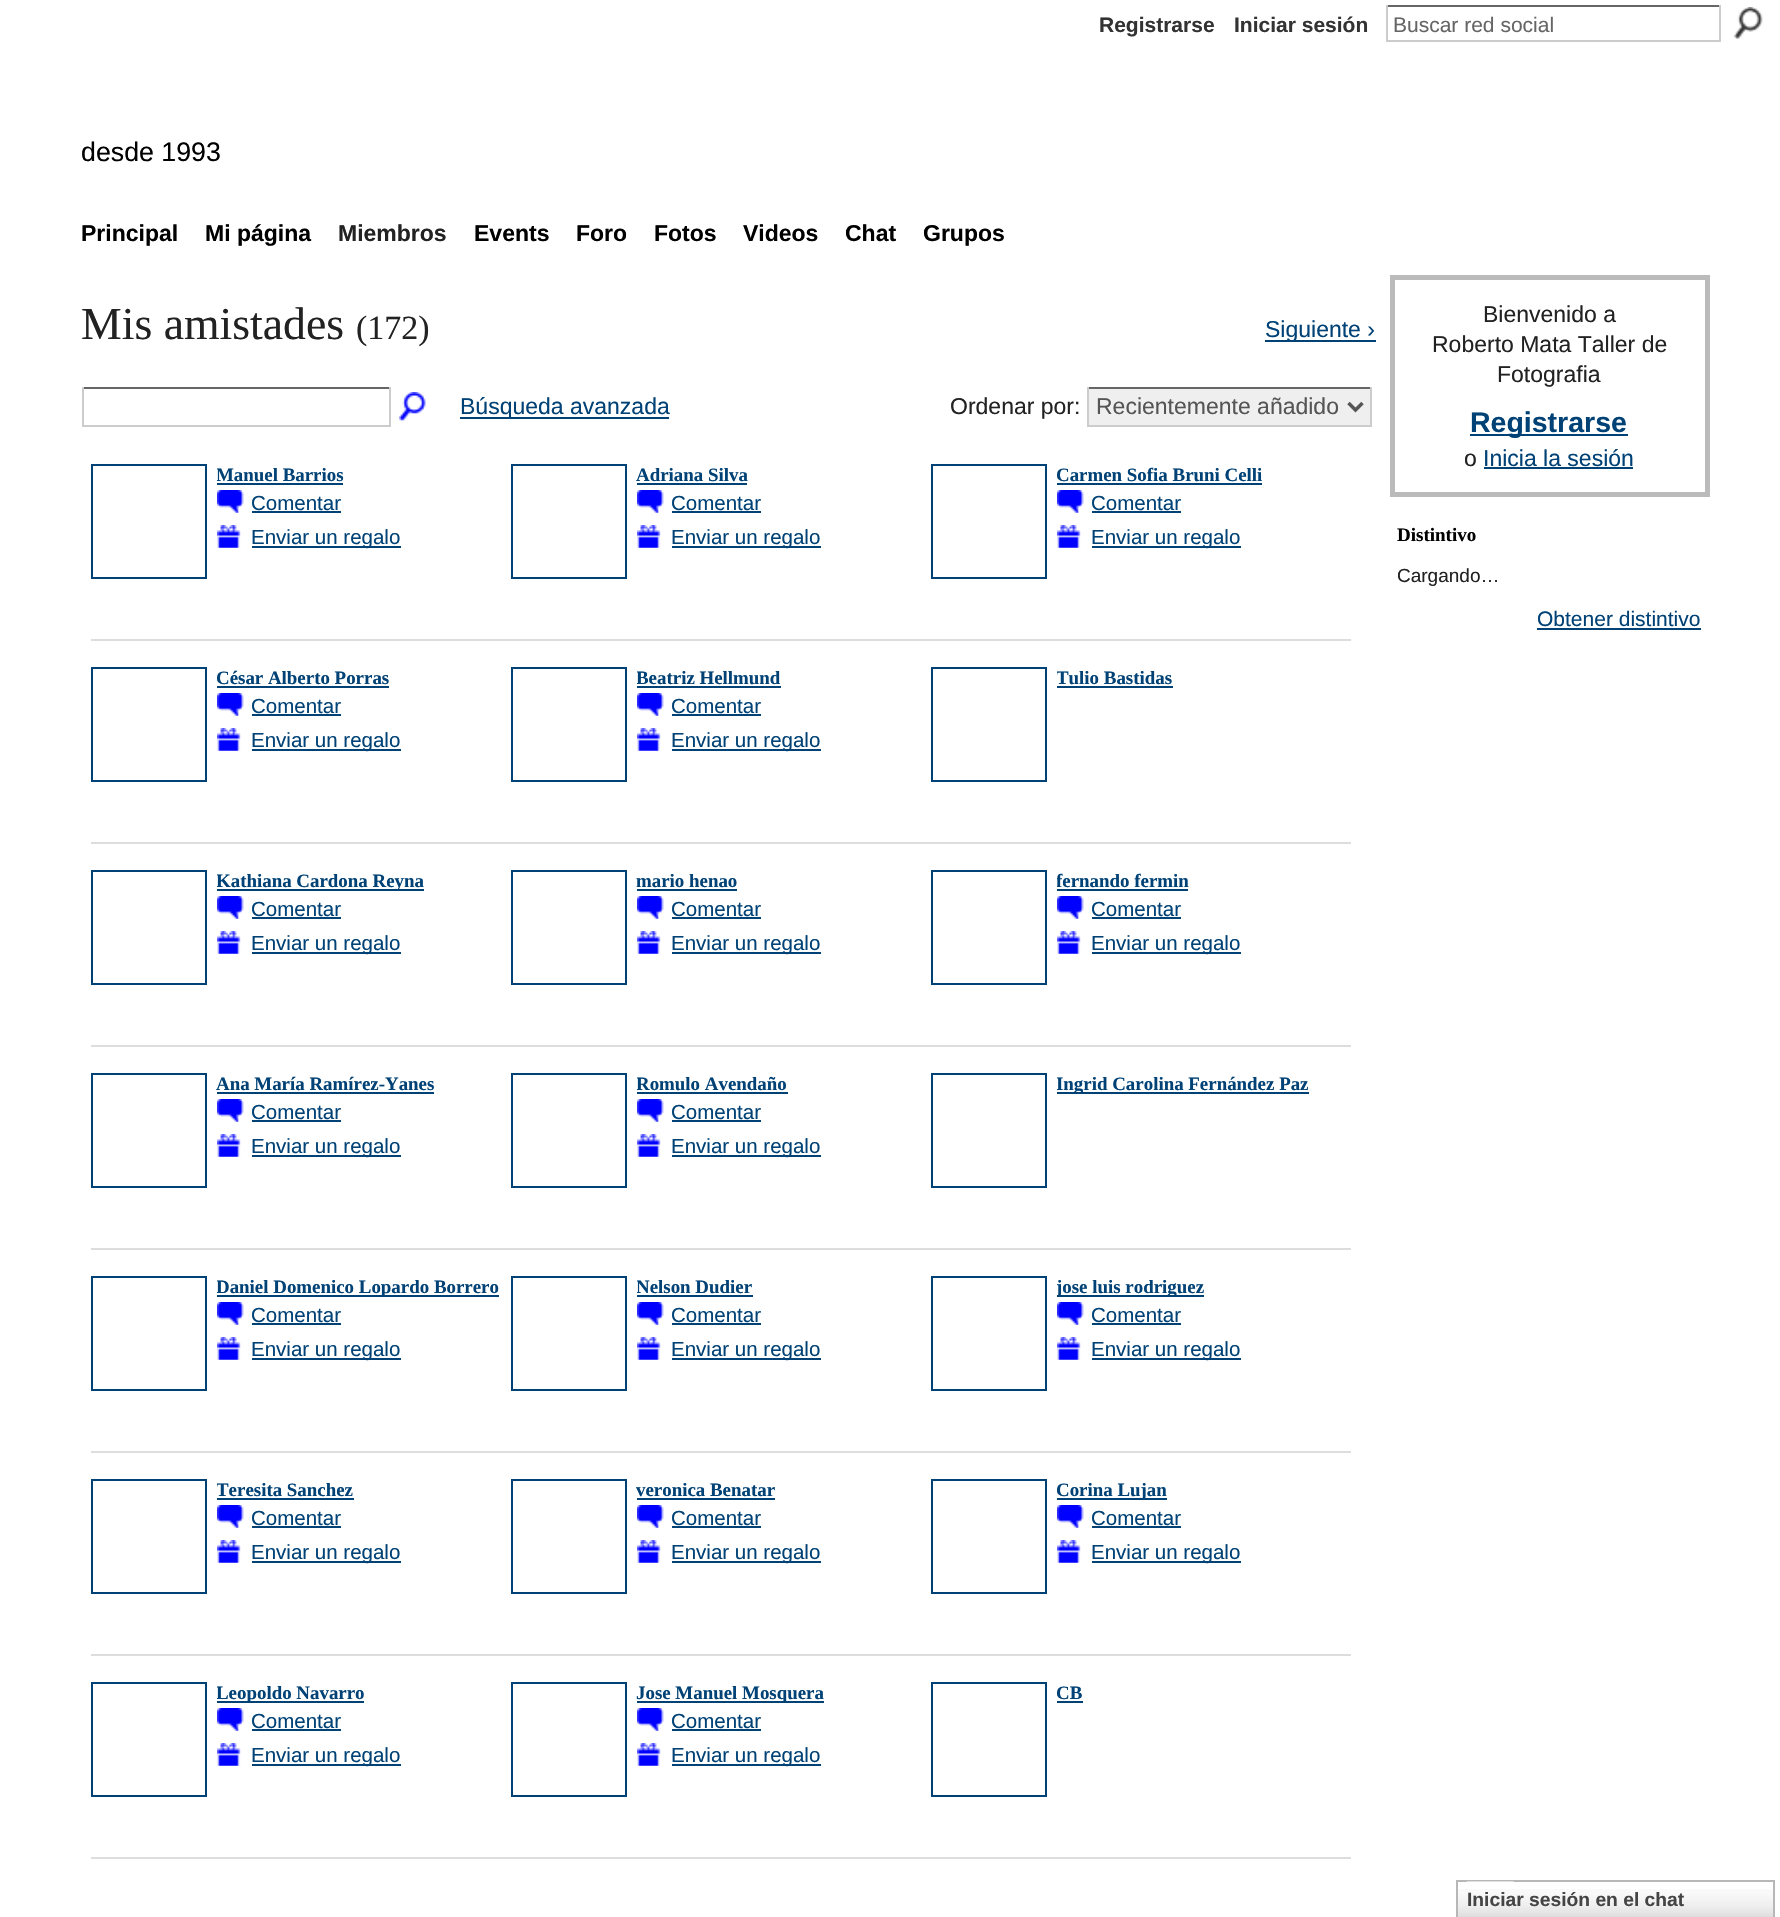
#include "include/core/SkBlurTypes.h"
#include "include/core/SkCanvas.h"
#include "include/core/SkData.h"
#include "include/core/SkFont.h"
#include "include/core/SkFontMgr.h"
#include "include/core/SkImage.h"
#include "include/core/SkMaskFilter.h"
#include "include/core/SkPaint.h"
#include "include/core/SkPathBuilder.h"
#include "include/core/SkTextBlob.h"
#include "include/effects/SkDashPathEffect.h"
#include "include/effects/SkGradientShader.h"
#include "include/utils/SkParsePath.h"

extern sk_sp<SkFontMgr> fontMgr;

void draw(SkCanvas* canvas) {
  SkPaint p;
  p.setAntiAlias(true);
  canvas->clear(SK_ColorWHITE);
  p.setColor(SkColorSetRGB(102, 102, 102));
  canvas->drawRect(SkRect::MakeLTRB(1386, 5, 1720, 7), p);
  p.setColor(SkColorSetRGB(204, 204, 204));
  canvas->drawRect(SkRect::MakeLTRB(1719, 5, 1721, 42), p);
  canvas->drawRect(SkRect::MakeLTRB(1386, 40, 1720, 42), p);
  canvas->drawRect(SkRect::MakeLTRB(1386, 5, 1388, 42), p);
  canvas->drawImageRect(SkImages::DeferredFromEncodedData(SkData::MakeFromFileName("images/1.png")), SkRect::MakeLTRB(1734, 7, 1763, 39), SkSamplingOptions());
  p.setColor(SkColorSetRGB(0, 66, 118));
  canvas->drawRect(SkRect::MakeLTRB(1265, 340, 1376, 342), p);
  p.setColor(SkColorSetRGB(102, 102, 102));
  canvas->drawRect(SkRect::MakeLTRB(82, 387, 390, 389), p);
  p.setColor(SkColorSetRGB(204, 204, 204));
  canvas->drawRect(SkRect::MakeLTRB(389, 387, 391, 427), p);
  canvas->drawRect(SkRect::MakeLTRB(82, 425, 390, 427), p);
  canvas->drawRect(SkRect::MakeLTRB(82, 387, 84, 427), p);
  canvas->drawImageRect(SkImages::DeferredFromEncodedData(SkData::MakeFromFileName("images/2.png")), SkRect::MakeLTRB(399, 392, 426, 421), SkSamplingOptions());
  p.setColor(SkColorSetRGB(0, 66, 118));
  canvas->drawRect(SkRect::MakeLTRB(460, 417, 669, 419), p);
  p.setColor(SkColorSetRGB(239, 239, 239));
  canvas->drawRect(SkRect::MakeLTRB(1089, 389, 1370, 425), p);
  p.setColor(SkColorSetRGB(102, 102, 102));
  canvas->drawRect(SkRect::MakeLTRB(1087, 387, 1372, 389), p);
  p.setColor(SkColorSetRGB(204, 204, 204));
  canvas->drawRect(SkRect::MakeLTRB(1370, 387, 1372, 427), p);
  canvas->drawRect(SkRect::MakeLTRB(1087, 425, 1372, 427), p);
  canvas->drawRect(SkRect::MakeLTRB(1087, 387, 1089, 427), p);
  p.setStyle(SkPaint::kStroke_Style);
  p.setStrokeWidth(3.5f);
  p.setColor(SkColorSetRGB(85, 85, 85));
  canvas->drawPath(SkPathBuilder().moveTo(1348.5f, 403).lineTo(1355.5f, 410).lineTo(1362.5f, 403).detach(), p);
  p.setStyle(SkPaint::kFill_Style);
  p.setColor(SkColorSetRGB(221, 221, 221));
  canvas->drawRect(SkRect::MakeLTRB(91, 639, 1351, 641), p);
  p.setStyle(SkPaint::kStroke_Style);
  p.setStrokeWidth(2);
  p.setColor(SkColorSetRGB(0, 66, 118));
  canvas->drawRect(SkRect::MakeLTRB(92, 465, 206, 578), p);
  p.setStyle(SkPaint::kFill_Style);
  canvas->drawRect(SkRect::MakeLTRB(217, 483, 343, 485), p);
  canvas->drawImageRect(SkImages::DeferredFromEncodedData(SkData::MakeFromFileName("images/3.png")), SkRect::MakeLTRB(217, 490, 244, 513), SkSamplingOptions());
  canvas->drawRect(SkRect::MakeLTRB(252, 511, 341, 513), p);
  canvas->drawImageRect(SkImages::DeferredFromEncodedData(SkData::MakeFromFileName("images/4.png")), SkRect::MakeLTRB(217, 525, 241, 548), SkSamplingOptions());
  canvas->drawRect(SkRect::MakeLTRB(252, 546, 401, 548), p);
  p.setStyle(SkPaint::kStroke_Style);
  canvas->drawRect(SkRect::MakeLTRB(512, 465, 626, 578), p);
  p.setStyle(SkPaint::kFill_Style);
  canvas->drawRect(SkRect::MakeLTRB(637, 483, 747, 485), p);
  canvas->drawImageRect(SkImages::DeferredFromEncodedData(SkData::MakeFromFileName("images/3.png")), SkRect::MakeLTRB(637, 490, 664, 513), SkSamplingOptions());
  canvas->drawRect(SkRect::MakeLTRB(672, 511, 761, 513), p);
  canvas->drawImageRect(SkImages::DeferredFromEncodedData(SkData::MakeFromFileName("images/4.png")), SkRect::MakeLTRB(637, 525, 661, 548), SkSamplingOptions());
  canvas->drawRect(SkRect::MakeLTRB(672, 546, 821, 548), p);
  p.setStyle(SkPaint::kStroke_Style);
  canvas->drawRect(SkRect::MakeLTRB(932, 465, 1046, 578), p);
  p.setStyle(SkPaint::kFill_Style);
  canvas->drawRect(SkRect::MakeLTRB(1057, 483, 1262, 485), p);
  canvas->drawImageRect(SkImages::DeferredFromEncodedData(SkData::MakeFromFileName("images/5.png")), SkRect::MakeLTRB(1057, 490, 1084, 513), SkSamplingOptions());
  canvas->drawRect(SkRect::MakeLTRB(1092, 511, 1181, 513), p);
  canvas->drawImageRect(SkImages::DeferredFromEncodedData(SkData::MakeFromFileName("images/6.png")), SkRect::MakeLTRB(1057, 525, 1081, 548), SkSamplingOptions());
  canvas->drawRect(SkRect::MakeLTRB(1092, 546, 1241, 548), p);
  p.setColor(SkColorSetRGB(221, 221, 221));
  canvas->drawRect(SkRect::MakeLTRB(91, 842, 1351, 844), p);
  p.setStyle(SkPaint::kStroke_Style);
  p.setColor(SkColorSetRGB(0, 66, 118));
  canvas->drawRect(SkRect::MakeLTRB(92, 668, 206, 781), p);
  p.setStyle(SkPaint::kFill_Style);
  canvas->drawRect(SkRect::MakeLTRB(217, 686, 389, 688), p);
  canvas->drawImageRect(SkImages::DeferredFromEncodedData(SkData::MakeFromFileName("images/3.png")), SkRect::MakeLTRB(217, 693, 244, 716), SkSamplingOptions());
  canvas->drawRect(SkRect::MakeLTRB(252, 714, 341, 716), p);
  canvas->drawImageRect(SkImages::DeferredFromEncodedData(SkData::MakeFromFileName("images/4.png")), SkRect::MakeLTRB(217, 728, 241, 751), SkSamplingOptions());
  canvas->drawRect(SkRect::MakeLTRB(252, 749, 401, 751), p);
  p.setStyle(SkPaint::kStroke_Style);
  canvas->drawRect(SkRect::MakeLTRB(512, 668, 626, 781), p);
  p.setStyle(SkPaint::kFill_Style);
  canvas->drawRect(SkRect::MakeLTRB(637, 686, 781, 688), p);
  canvas->drawImageRect(SkImages::DeferredFromEncodedData(SkData::MakeFromFileName("images/3.png")), SkRect::MakeLTRB(637, 693, 664, 716), SkSamplingOptions());
  canvas->drawRect(SkRect::MakeLTRB(672, 714, 761, 716), p);
  canvas->drawImageRect(SkImages::DeferredFromEncodedData(SkData::MakeFromFileName("images/4.png")), SkRect::MakeLTRB(637, 728, 661, 751), SkSamplingOptions());
  canvas->drawRect(SkRect::MakeLTRB(672, 749, 821, 751), p);
  p.setStyle(SkPaint::kStroke_Style);
  canvas->drawRect(SkRect::MakeLTRB(932, 668, 1046, 781), p);
  p.setStyle(SkPaint::kFill_Style);
  canvas->drawRect(SkRect::MakeLTRB(1057, 686, 1173, 688), p);
  p.setColor(SkColorSetRGB(221, 221, 221));
  canvas->drawRect(SkRect::MakeLTRB(91, 1045, 1351, 1047), p);
  p.setStyle(SkPaint::kStroke_Style);
  p.setColor(SkColorSetRGB(0, 66, 118));
  canvas->drawRect(SkRect::MakeLTRB(92, 871, 206, 984), p);
  p.setStyle(SkPaint::kFill_Style);
  canvas->drawRect(SkRect::MakeLTRB(217, 889, 424, 891), p);
  canvas->drawImageRect(SkImages::DeferredFromEncodedData(SkData::MakeFromFileName("images/3.png")), SkRect::MakeLTRB(217, 896, 244, 919), SkSamplingOptions());
  canvas->drawRect(SkRect::MakeLTRB(252, 917, 341, 919), p);
  canvas->drawImageRect(SkImages::DeferredFromEncodedData(SkData::MakeFromFileName("images/4.png")), SkRect::MakeLTRB(217, 931, 241, 954), SkSamplingOptions());
  canvas->drawRect(SkRect::MakeLTRB(252, 952, 401, 954), p);
  p.setStyle(SkPaint::kStroke_Style);
  canvas->drawRect(SkRect::MakeLTRB(512, 871, 626, 984), p);
  p.setStyle(SkPaint::kFill_Style);
  canvas->drawRect(SkRect::MakeLTRB(637, 889, 737, 891), p);
  canvas->drawImageRect(SkImages::DeferredFromEncodedData(SkData::MakeFromFileName("images/3.png")), SkRect::MakeLTRB(637, 896, 664, 919), SkSamplingOptions());
  canvas->drawRect(SkRect::MakeLTRB(672, 917, 761, 919), p);
  canvas->drawImageRect(SkImages::DeferredFromEncodedData(SkData::MakeFromFileName("images/4.png")), SkRect::MakeLTRB(637, 931, 661, 954), SkSamplingOptions());
  canvas->drawRect(SkRect::MakeLTRB(672, 952, 821, 954), p);
  p.setStyle(SkPaint::kStroke_Style);
  canvas->drawRect(SkRect::MakeLTRB(932, 871, 1046, 984), p);
  p.setStyle(SkPaint::kFill_Style);
  canvas->drawRect(SkRect::MakeLTRB(1057, 889, 1188, 891), p);
  canvas->drawImageRect(SkImages::DeferredFromEncodedData(SkData::MakeFromFileName("images/5.png")), SkRect::MakeLTRB(1057, 896, 1084, 919), SkSamplingOptions());
  canvas->drawRect(SkRect::MakeLTRB(1092, 917, 1181, 919), p);
  canvas->drawImageRect(SkImages::DeferredFromEncodedData(SkData::MakeFromFileName("images/6.png")), SkRect::MakeLTRB(1057, 931, 1081, 954), SkSamplingOptions());
  canvas->drawRect(SkRect::MakeLTRB(1092, 952, 1241, 954), p);
  p.setColor(SkColorSetRGB(221, 221, 221));
  canvas->drawRect(SkRect::MakeLTRB(91, 1248, 1351, 1250), p);
  p.setStyle(SkPaint::kStroke_Style);
  p.setColor(SkColorSetRGB(0, 66, 118));
  canvas->drawRect(SkRect::MakeLTRB(92, 1074, 206, 1187), p);
  p.setStyle(SkPaint::kFill_Style);
  canvas->drawRect(SkRect::MakeLTRB(217, 1092, 434, 1094), p);
  canvas->drawImageRect(SkImages::DeferredFromEncodedData(SkData::MakeFromFileName("images/3.png")), SkRect::MakeLTRB(217, 1099, 244, 1122), SkSamplingOptions());
  canvas->drawRect(SkRect::MakeLTRB(252, 1120, 341, 1122), p);
  canvas->drawImageRect(SkImages::DeferredFromEncodedData(SkData::MakeFromFileName("images/4.png")), SkRect::MakeLTRB(217, 1134, 241, 1157), SkSamplingOptions());
  canvas->drawRect(SkRect::MakeLTRB(252, 1155, 401, 1157), p);
  p.setStyle(SkPaint::kStroke_Style);
  canvas->drawRect(SkRect::MakeLTRB(512, 1074, 626, 1187), p);
  p.setStyle(SkPaint::kFill_Style);
  canvas->drawRect(SkRect::MakeLTRB(637, 1092, 788, 1094), p);
  canvas->drawImageRect(SkImages::DeferredFromEncodedData(SkData::MakeFromFileName("images/3.png")), SkRect::MakeLTRB(637, 1099, 664, 1122), SkSamplingOptions());
  canvas->drawRect(SkRect::MakeLTRB(672, 1120, 761, 1122), p);
  canvas->drawImageRect(SkImages::DeferredFromEncodedData(SkData::MakeFromFileName("images/4.png")), SkRect::MakeLTRB(637, 1134, 661, 1157), SkSamplingOptions());
  canvas->drawRect(SkRect::MakeLTRB(672, 1155, 821, 1157), p);
  p.setStyle(SkPaint::kStroke_Style);
  canvas->drawRect(SkRect::MakeLTRB(932, 1074, 1046, 1187), p);
  p.setStyle(SkPaint::kFill_Style);
  canvas->drawRect(SkRect::MakeLTRB(1057, 1092, 1309, 1094), p);
  p.setColor(SkColorSetRGB(221, 221, 221));
  canvas->drawRect(SkRect::MakeLTRB(91, 1451, 1351, 1453), p);
  p.setStyle(SkPaint::kStroke_Style);
  p.setColor(SkColorSetRGB(0, 66, 118));
  canvas->drawRect(SkRect::MakeLTRB(92, 1277, 206, 1390), p);
  p.setStyle(SkPaint::kFill_Style);
  canvas->drawRect(SkRect::MakeLTRB(217, 1295, 499, 1297), p);
  canvas->drawImageRect(SkImages::DeferredFromEncodedData(SkData::MakeFromFileName("images/3.png")), SkRect::MakeLTRB(217, 1302, 244, 1325), SkSamplingOptions());
  canvas->drawRect(SkRect::MakeLTRB(252, 1323, 341, 1325), p);
  canvas->drawImageRect(SkImages::DeferredFromEncodedData(SkData::MakeFromFileName("images/4.png")), SkRect::MakeLTRB(217, 1337, 241, 1360), SkSamplingOptions());
  canvas->drawRect(SkRect::MakeLTRB(252, 1358, 401, 1360), p);
  p.setStyle(SkPaint::kStroke_Style);
  canvas->drawRect(SkRect::MakeLTRB(512, 1277, 626, 1390), p);
  p.setStyle(SkPaint::kFill_Style);
  canvas->drawRect(SkRect::MakeLTRB(637, 1295, 753, 1297), p);
  canvas->drawImageRect(SkImages::DeferredFromEncodedData(SkData::MakeFromFileName("images/3.png")), SkRect::MakeLTRB(637, 1302, 664, 1325), SkSamplingOptions());
  canvas->drawRect(SkRect::MakeLTRB(672, 1323, 761, 1325), p);
  canvas->drawImageRect(SkImages::DeferredFromEncodedData(SkData::MakeFromFileName("images/4.png")), SkRect::MakeLTRB(637, 1337, 661, 1360), SkSamplingOptions());
  canvas->drawRect(SkRect::MakeLTRB(672, 1358, 821, 1360), p);
  p.setStyle(SkPaint::kStroke_Style);
  canvas->drawRect(SkRect::MakeLTRB(932, 1277, 1046, 1390), p);
  p.setStyle(SkPaint::kFill_Style);
  canvas->drawRect(SkRect::MakeLTRB(1057, 1295, 1204, 1297), p);
  canvas->drawImageRect(SkImages::DeferredFromEncodedData(SkData::MakeFromFileName("images/5.png")), SkRect::MakeLTRB(1057, 1302, 1084, 1325), SkSamplingOptions());
  canvas->drawRect(SkRect::MakeLTRB(1092, 1323, 1181, 1325), p);
  canvas->drawImageRect(SkImages::DeferredFromEncodedData(SkData::MakeFromFileName("images/6.png")), SkRect::MakeLTRB(1057, 1337, 1081, 1360), SkSamplingOptions());
  canvas->drawRect(SkRect::MakeLTRB(1092, 1358, 1241, 1360), p);
  p.setColor(SkColorSetRGB(221, 221, 221));
  canvas->drawRect(SkRect::MakeLTRB(91, 1654, 1351, 1656), p);
  p.setStyle(SkPaint::kStroke_Style);
  p.setColor(SkColorSetRGB(0, 66, 118));
  canvas->drawRect(SkRect::MakeLTRB(92, 1480, 206, 1593), p);
  p.setStyle(SkPaint::kFill_Style);
  canvas->drawRect(SkRect::MakeLTRB(217, 1498, 354, 1500), p);
  canvas->drawImageRect(SkImages::DeferredFromEncodedData(SkData::MakeFromFileName("images/3.png")), SkRect::MakeLTRB(217, 1505, 244, 1528), SkSamplingOptions());
  canvas->drawRect(SkRect::MakeLTRB(252, 1526, 341, 1528), p);
  canvas->drawImageRect(SkImages::DeferredFromEncodedData(SkData::MakeFromFileName("images/4.png")), SkRect::MakeLTRB(217, 1540, 241, 1563), SkSamplingOptions());
  canvas->drawRect(SkRect::MakeLTRB(252, 1561, 401, 1563), p);
  p.setStyle(SkPaint::kStroke_Style);
  canvas->drawRect(SkRect::MakeLTRB(512, 1480, 626, 1593), p);
  p.setStyle(SkPaint::kFill_Style);
  canvas->drawRect(SkRect::MakeLTRB(637, 1498, 775, 1500), p);
  canvas->drawImageRect(SkImages::DeferredFromEncodedData(SkData::MakeFromFileName("images/3.png")), SkRect::MakeLTRB(637, 1505, 664, 1528), SkSamplingOptions());
  canvas->drawRect(SkRect::MakeLTRB(672, 1526, 761, 1528), p);
  canvas->drawImageRect(SkImages::DeferredFromEncodedData(SkData::MakeFromFileName("images/4.png")), SkRect::MakeLTRB(637, 1540, 661, 1563), SkSamplingOptions());
  canvas->drawRect(SkRect::MakeLTRB(672, 1561, 821, 1563), p);
  p.setStyle(SkPaint::kStroke_Style);
  canvas->drawRect(SkRect::MakeLTRB(932, 1480, 1046, 1593), p);
  p.setStyle(SkPaint::kFill_Style);
  canvas->drawRect(SkRect::MakeLTRB(1057, 1498, 1167, 1500), p);
  canvas->drawImageRect(SkImages::DeferredFromEncodedData(SkData::MakeFromFileName("images/5.png")), SkRect::MakeLTRB(1057, 1505, 1084, 1528), SkSamplingOptions());
  canvas->drawRect(SkRect::MakeLTRB(1092, 1526, 1181, 1528), p);
  canvas->drawImageRect(SkImages::DeferredFromEncodedData(SkData::MakeFromFileName("images/6.png")), SkRect::MakeLTRB(1057, 1540, 1081, 1563), SkSamplingOptions());
  canvas->drawRect(SkRect::MakeLTRB(1092, 1561, 1241, 1563), p);
  p.setColor(SkColorSetRGB(221, 221, 221));
  canvas->drawRect(SkRect::MakeLTRB(91, 1857, 1351, 1859), p);
  p.setStyle(SkPaint::kStroke_Style);
  p.setColor(SkColorSetRGB(0, 66, 118));
  canvas->drawRect(SkRect::MakeLTRB(92, 1683, 206, 1796), p);
  p.setStyle(SkPaint::kFill_Style);
  canvas->drawRect(SkRect::MakeLTRB(217, 1701, 364, 1703), p);
  canvas->drawImageRect(SkImages::DeferredFromEncodedData(SkData::MakeFromFileName("images/3.png")), SkRect::MakeLTRB(217, 1708, 244, 1731), SkSamplingOptions());
  canvas->drawRect(SkRect::MakeLTRB(252, 1729, 341, 1731), p);
  canvas->drawImageRect(SkImages::DeferredFromEncodedData(SkData::MakeFromFileName("images/4.png")), SkRect::MakeLTRB(217, 1743, 241, 1766), SkSamplingOptions());
  canvas->drawRect(SkRect::MakeLTRB(252, 1764, 401, 1766), p);
  p.setStyle(SkPaint::kStroke_Style);
  canvas->drawRect(SkRect::MakeLTRB(512, 1683, 626, 1796), p);
  p.setStyle(SkPaint::kFill_Style);
  canvas->drawRect(SkRect::MakeLTRB(637, 1701, 824, 1703), p);
  canvas->drawImageRect(SkImages::DeferredFromEncodedData(SkData::MakeFromFileName("images/3.png")), SkRect::MakeLTRB(637, 1708, 664, 1731), SkSamplingOptions());
  canvas->drawRect(SkRect::MakeLTRB(672, 1729, 761, 1731), p);
  canvas->drawImageRect(SkImages::DeferredFromEncodedData(SkData::MakeFromFileName("images/4.png")), SkRect::MakeLTRB(637, 1743, 661, 1766), SkSamplingOptions());
  canvas->drawRect(SkRect::MakeLTRB(672, 1764, 821, 1766), p);
  p.setStyle(SkPaint::kStroke_Style);
  canvas->drawRect(SkRect::MakeLTRB(932, 1683, 1046, 1796), p);
  p.setStyle(SkPaint::kFill_Style);
  canvas->drawRect(SkRect::MakeLTRB(1057, 1701, 1083, 1703), p);
  p.setStyle(SkPaint::kStroke_Style);
  p.setStrokeWidth(5);
  p.setColor(SkColorSetRGB(187, 187, 187));
  canvas->drawRect(SkRect::MakeLTRB(1392.5f, 277.5f, 1707.5f, 494.5f), p);
  p.setStyle(SkPaint::kFill_Style);
  p.setColor(SkColorSetRGB(0, 66, 118));
  canvas->drawRect(SkRect::MakeLTRB(1470, 434, 1628, 436), p);
  canvas->drawRect(SkRect::MakeLTRB(1484, 467, 1633, 469), p);
  canvas->drawRect(SkRect::MakeLTRB(1537, 628, 1701, 630), p);
  canvas->drawImageRect(SkImages::DeferredFromEncodedData(SkData::MakeFromFileName("images/7.png")), SkRect::MakeLTRB(1458, 1889, 1773, 1917), SkSamplingOptions());
  p.setStyle(SkPaint::kStroke_Style);
  p.setStrokeWidth(2);
  p.setColor(SkColorSetRGB(183, 183, 183));
  canvas->drawRect(SkRect::MakeLTRB(1457, 1881, 1774, 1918), p);
  canvas->drawImageRect(SkImages::DeferredFromEncodedData(SkData::MakeFromFileName("images/8.png")), SkRect::MakeLTRB(1466, 1881, 1514, 1882), SkSamplingOptions());
  SkFont font1(fontMgr->matchFamilyStyle("Liberation Sans", SkFontStyle::Bold()), 21);
  font1.setSubpixel(true);
  p.setStyle(SkPaint::kFill_Style);
  p.setColor(SkColorSetRGB(51, 51, 51));
  canvas->drawString("Registrarse", 1099, 32, font1, p);
  canvas->drawString("Iniciar sesión", 1234, 32, font1, p);
  SkFont font2(fontMgr->matchFamilyStyle("Liberation Sans", SkFontStyle::Normal()), 21);
  font2.setSubpixel(true);
  p.setColor(SkColorSetRGB(102, 102, 102));
  canvas->drawString("Buscar red social", 1393, 32, font2, p);
  SkFont font3(fontMgr->matchFamilyStyle("Liberation Sans", SkFontStyle::Normal()), 26.75f);
  font3.setSubpixel(true);
  p.setColor(SK_ColorBLACK);
  canvas->drawString("desde 1993", 81, 161, font3, p);
  SkFont font4(fontMgr->matchFamilyStyle("Liberation Sans", SkFontStyle::Bold()), 23);
  font4.setSubpixel(true);
  canvas->drawString("Principal", 81, 241, font4, p);
  canvas->drawString("Mi página", 205, 241, font4, p);
  p.setColor(SkColorSetRGB(34, 34, 34));
  canvas->drawString("Miembros", 338, 241, font4, p);
  p.setColor(SK_ColorBLACK);
  canvas->drawString("Events", 474, 241, font4, p);
  canvas->drawString("Foro", 576, 241, font4, p);
  canvas->drawString("Fotos", 654, 241, font4, p);
  canvas->drawString("Videos", 743, 241, font4, p);
  canvas->drawString("Chat", 845, 241, font4, p);
  canvas->drawString("Grupos", 923, 241, font4, p);
  SkFont font5(fontMgr->matchFamilyStyle("Liberation Serif", SkFontStyle::Normal()), 45.75f);
  font5.setSubpixel(true);
  p.setColor(SkColorSetRGB(34, 34, 34));
  canvas->drawString("Mis amistades", 81, 339, font5, p);
  SkFont font6(fontMgr->matchFamilyStyle("Liberation Serif", SkFontStyle::Normal()), 34);
  font6.setSubpixel(true);
  canvas->drawString("(172)", 356, 339, font6, p);
  SkFont font7(fontMgr->matchFamilyStyle("Liberation Sans", SkFontStyle::Normal()), 23);
  font7.setSubpixel(true);
  p.setColor(SkColorSetRGB(0, 66, 118));
  canvas->drawString("Siguiente ›", 1265, 337, font7, p);
  canvas->drawString("Búsqueda avanzada", 460, 414, font7, p);
  p.setColor(SkColorSetRGB(34, 34, 34));
  canvas->drawString("Ordenar por:", 950, 414, font7, p);
  p.setColor(SkColorSetRGB(85, 85, 85));
  canvas->drawString("Recientemente añadido", 1096, 414, font7, p);
  canvas->save();
  canvas->clipRect(SkRect::MakeLTRB(217, 464, 502, 485));
  SkFont font8(fontMgr->matchFamilyStyle("Liberation Serif", SkFontStyle::Bold()), 18.9f);
  font8.setSubpixel(true);
  p.setColor(SkColorSetRGB(0, 66, 118));
  canvas->drawString("Manuel Barrios", 216, 481, font8, p);
  canvas->restore();
  SkFont font9(fontMgr->matchFamilyStyle("Liberation Sans", SkFontStyle::Normal()), 20.5f);
  font9.setSubpixel(true);
  canvas->drawString("Comentar", 251, 510, font9, p);
  canvas->drawString("Enviar un regalo", 251, 544, font9, p);
  canvas->drawString("Adriana Silva", 636, 481, font8, p);
  canvas->drawString("Comentar", 671, 510, font9, p);
  canvas->drawString("Enviar un regalo", 671, 544, font9, p);
  canvas->drawString("Carmen Sofia Bruni Celli", 1056, 481, font8, p);
  canvas->drawString("Comentar", 1091, 510, font9, p);
  canvas->drawString("Enviar un regalo", 1091, 544, font9, p);
  canvas->drawString("César Alberto Porras", 216, 684, font8, p);
  canvas->drawString("Comentar", 251, 713, font9, p);
  canvas->drawString("Enviar un regalo", 251, 747, font9, p);
  canvas->save();
  canvas->clipRect(SkRect::MakeLTRB(637, 667, 922, 688));
  canvas->drawString("Beatriz Hellmund", 636, 684, font8, p);
  canvas->restore();
  canvas->drawString("Comentar", 671, 713, font9, p);
  canvas->drawString("Enviar un regalo", 671, 747, font9, p);
  canvas->save();
  canvas->clipRect(SkRect::MakeLTRB(1057, 667, 1342, 688));
  canvas->drawString("Tulio Bastidas", 1056, 684, font8, p);
  canvas->restore();
  canvas->save();
  canvas->clipRect(SkRect::MakeLTRB(217, 870, 502, 891));
  canvas->drawString("Kathiana Cardona Reyna", 216, 887, font8, p);
  canvas->restore();
  canvas->drawString("Comentar", 251, 916, font9, p);
  canvas->drawString("Enviar un regalo", 251, 950, font9, p);
  canvas->drawString("mario henao", 636, 887, font8, p);
  canvas->drawString("Comentar", 671, 916, font9, p);
  canvas->drawString("Enviar un regalo", 671, 950, font9, p);
  canvas->save();
  canvas->clipRect(SkRect::MakeLTRB(1057, 870, 1342, 891));
  canvas->drawString("fernando fermin", 1056, 887, font8, p);
  canvas->restore();
  canvas->drawString("Comentar", 1091, 916, font9, p);
  canvas->drawString("Enviar un regalo", 1091, 950, font9, p);
  canvas->drawString("Ana María Ramírez-Yanes", 216, 1090, font8, p);
  canvas->drawString("Comentar", 251, 1119, font9, p);
  canvas->drawString("Enviar un regalo", 251, 1153, font9, p);
  canvas->save();
  canvas->clipRect(SkRect::MakeLTRB(637, 1073, 922, 1094));
  canvas->drawString("Romulo Avendaño", 636, 1090, font8, p);
  canvas->restore();
  canvas->drawString("Comentar", 671, 1119, font9, p);
  canvas->drawString("Enviar un regalo", 671, 1153, font9, p);
  canvas->save();
  canvas->clipRect(SkRect::MakeLTRB(1057, 1073, 1342, 1094));
  canvas->drawString("Ingrid Carolina Fernández Paz", 1056, 1090, font8, p);
  canvas->restore();
  canvas->save();
  canvas->clipRect(SkRect::MakeLTRB(217, 1276, 502, 1297));
  canvas->drawString("Daniel Domenico Lopardo Borrero", 216, 1293, font8, p);
  canvas->restore();
  canvas->drawString("Comentar", 251, 1322, font9, p);
  canvas->drawString("Enviar un regalo", 251, 1356, font9, p);
  canvas->save();
  canvas->clipRect(SkRect::MakeLTRB(637, 1276, 922, 1297));
  canvas->drawString("Nelson Dudier", 636, 1293, font8, p);
  canvas->restore();
  canvas->drawString("Comentar", 671, 1322, font9, p);
  canvas->drawString("Enviar un regalo", 671, 1356, font9, p);
  canvas->save();
  canvas->clipRect(SkRect::MakeLTRB(1057, 1276, 1342, 1297));
  canvas->drawString("jose luis rodriguez", 1056, 1293, font8, p);
  canvas->restore();
  canvas->drawString("Comentar", 1091, 1322, font9, p);
  canvas->drawString("Enviar un regalo", 1091, 1356, font9, p);
  canvas->save();
  canvas->clipRect(SkRect::MakeLTRB(217, 1479, 502, 1500));
  canvas->drawString("Teresita Sanchez", 216, 1496, font8, p);
  canvas->restore();
  canvas->drawString("Comentar", 251, 1525, font9, p);
  canvas->drawString("Enviar un regalo", 251, 1559, font9, p);
  canvas->drawString("veronica Benatar", 636, 1496, font8, p);
  canvas->drawString("Comentar", 671, 1525, font9, p);
  canvas->drawString("Enviar un regalo", 671, 1559, font9, p);
  canvas->drawString("Corina Lujan", 1056, 1496, font8, p);
  canvas->drawString("Comentar", 1091, 1525, font9, p);
  canvas->drawString("Enviar un regalo", 1091, 1559, font9, p);
  canvas->save();
  canvas->clipRect(SkRect::MakeLTRB(217, 1682, 502, 1703));
  canvas->drawString("Leopoldo Navarro", 216, 1699, font8, p);
  canvas->restore();
  canvas->drawString("Comentar", 251, 1728, font9, p);
  canvas->drawString("Enviar un regalo", 251, 1762, font9, p);
  canvas->drawString("Jose Manuel Mosquera", 636, 1699, font8, p);
  canvas->drawString("Comentar", 671, 1728, font9, p);
  canvas->drawString("Enviar un regalo", 671, 1762, font9, p);
  canvas->drawString("CB", 1056, 1699, font8, p);
  p.setColor(SkColorSetRGB(34, 34, 34));
  canvas->drawString("Bienvenido a", 1483, 322, font7, p);
  canvas->drawString("Roberto Mata Taller de", 1432, 352, font7, p);
  canvas->drawString("Fotografia", 1497, 382, font7, p);
  SkFont font10(fontMgr->matchFamilyStyle("Liberation Sans", SkFontStyle::Bold()), 28.5f);
  font10.setSubpixel(true);
  p.setColor(SkColorSetRGB(0, 66, 118));
  canvas->drawString("Registrarse", 1470, 432, font10, p);
  p.setColor(SkColorSetRGB(34, 34, 34));
  canvas->drawString("o", 1464, 466, font7, p);
  p.setColor(SkColorSetRGB(0, 66, 118));
  canvas->drawString("Inicia la sesión", 1483, 466, font7, p);
  SkFont font11(fontMgr->matchFamilyStyle("Liberation Serif", SkFontStyle::Bold()), 19);
  font11.setSubpixel(true);
  p.setColor(SK_ColorBLACK);
  canvas->drawString("Distintivo", 1397, 541, font11, p);
  SkFont font12(fontMgr->matchFamilyStyle("Liberation Sans", SkFontStyle::Normal()), 19);
  font12.setSubpixel(true);
  p.setColor(SkColorSetRGB(34, 34, 34));
  canvas->drawString("Cargando…", 1397, 582, font12, p);
  p.setColor(SkColorSetRGB(0, 66, 118));
  canvas->drawString("Obtener distintivo", 1537, 626, font2, p);
  SkFont font13(fontMgr->matchFamilyStyle("Liberation Sans", SkFontStyle::Bold()), 19.25f);
  font13.setSubpixel(true);
  p.setColor(SkColorSetRGB(69, 69, 69));
  canvas->drawString("Iniciar sesión en el chat", 1467, 1906, font13, p);
}
